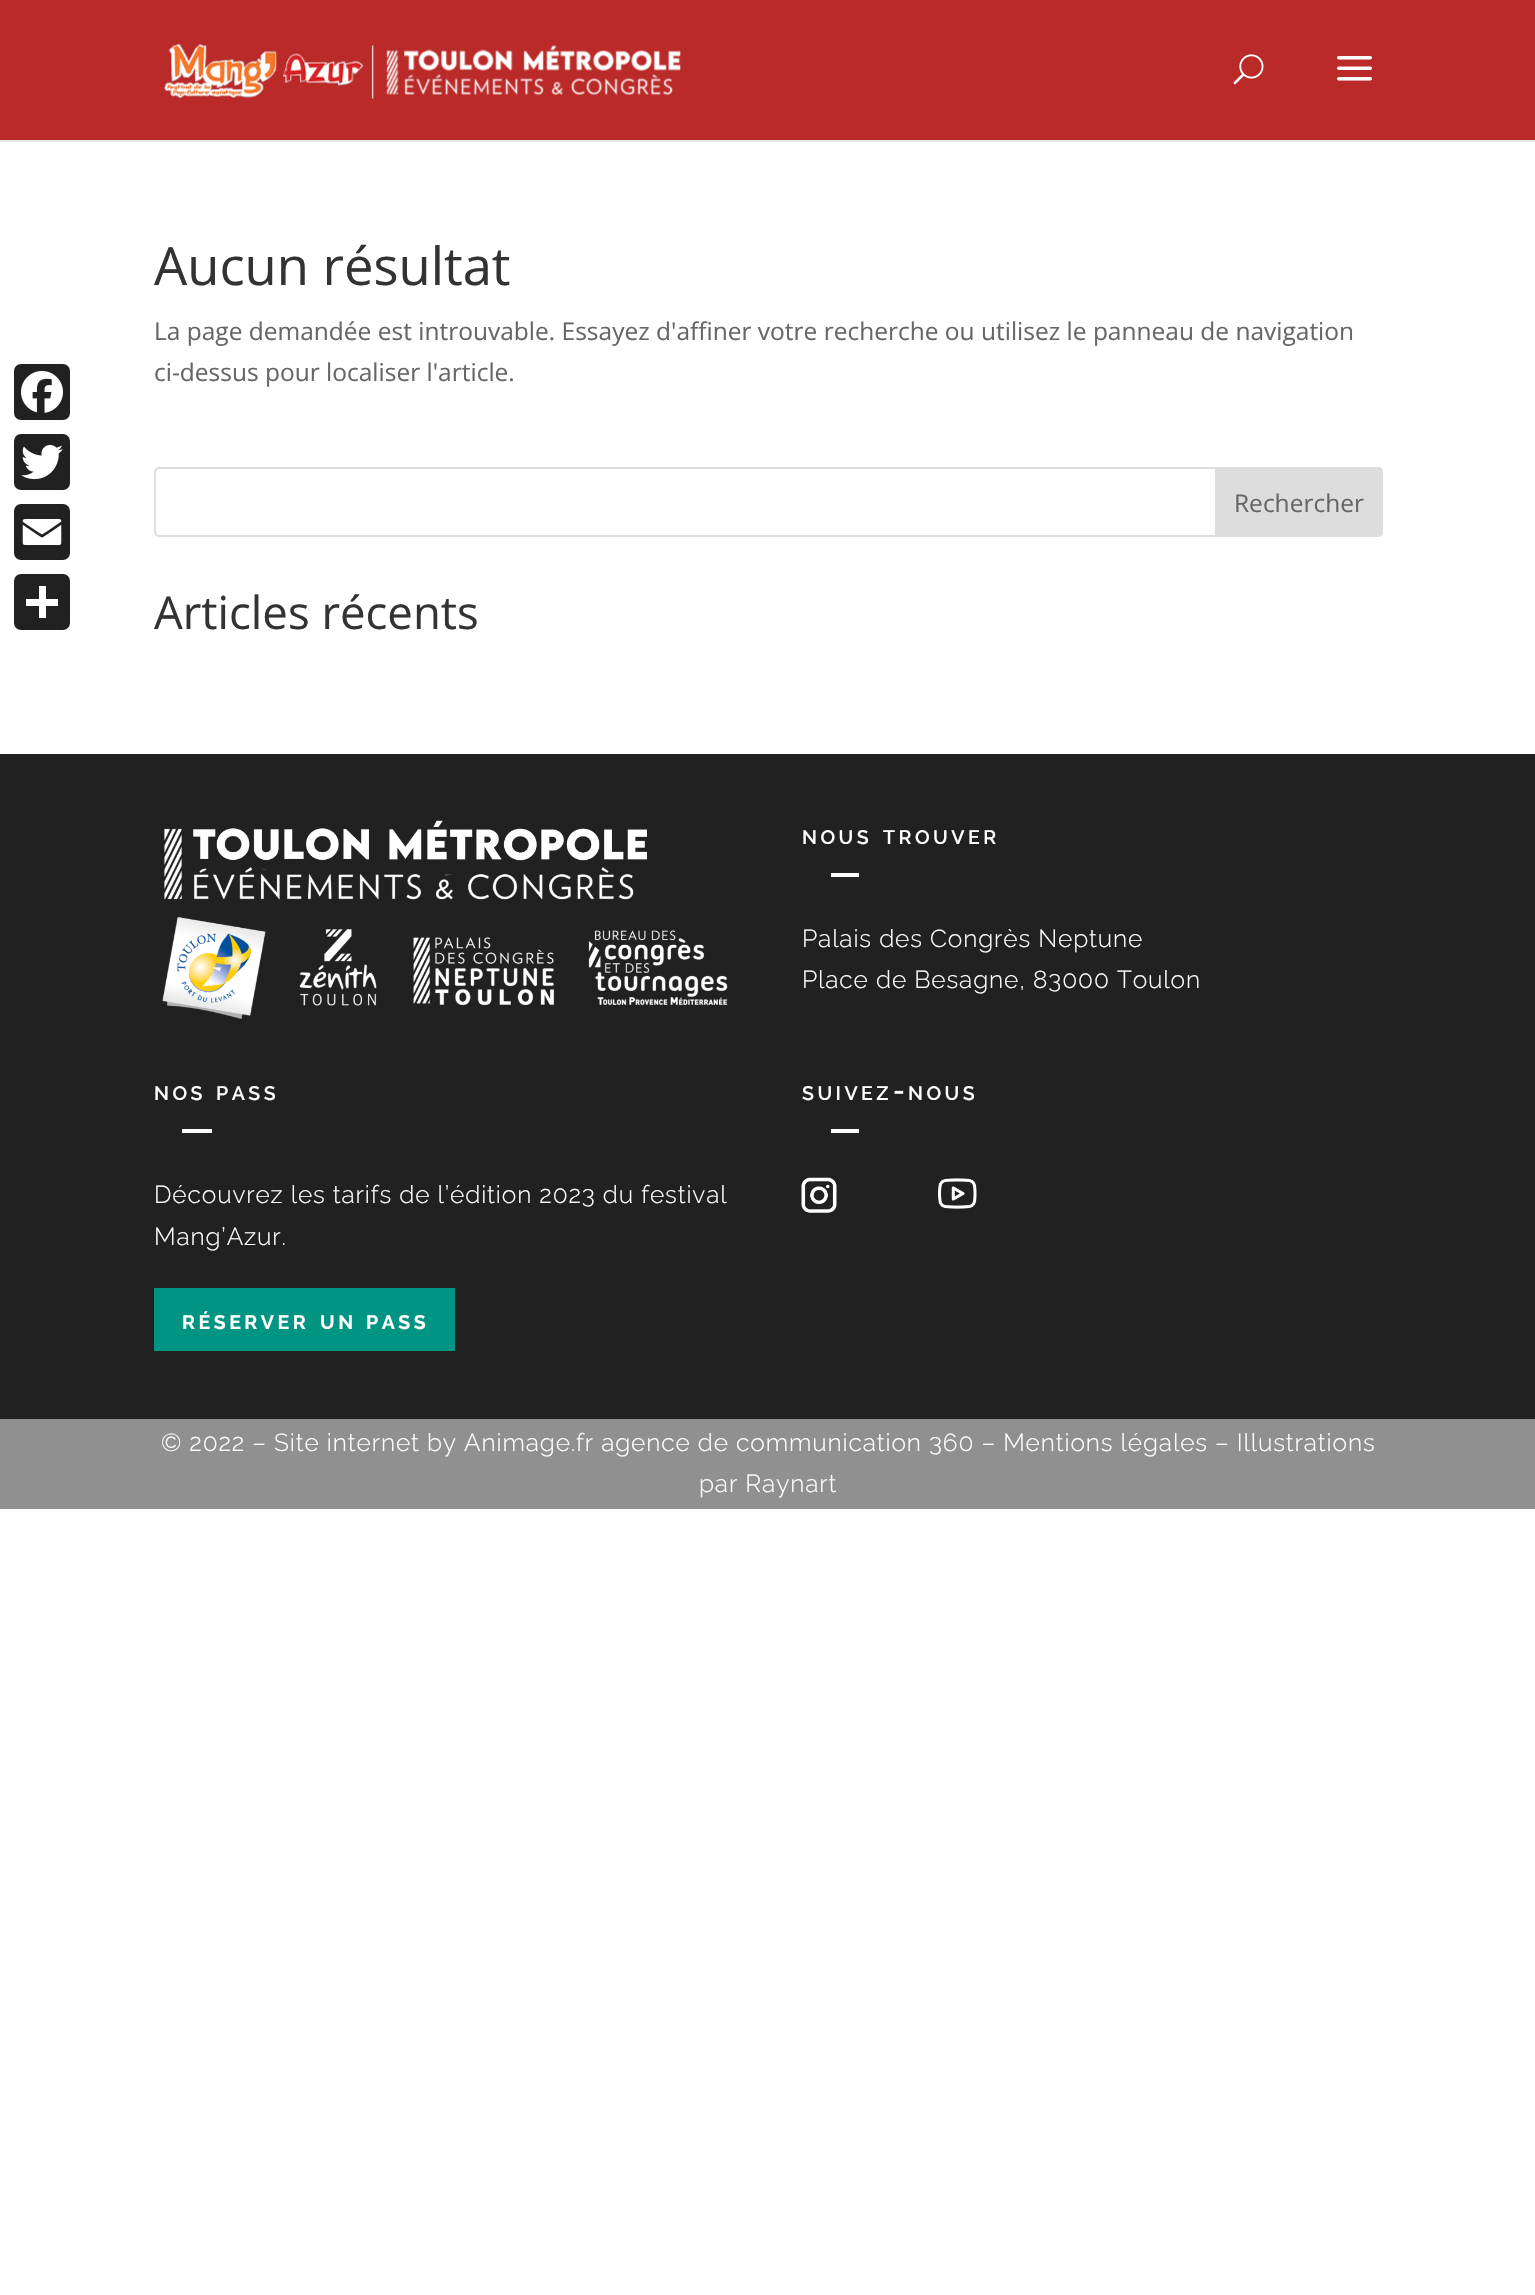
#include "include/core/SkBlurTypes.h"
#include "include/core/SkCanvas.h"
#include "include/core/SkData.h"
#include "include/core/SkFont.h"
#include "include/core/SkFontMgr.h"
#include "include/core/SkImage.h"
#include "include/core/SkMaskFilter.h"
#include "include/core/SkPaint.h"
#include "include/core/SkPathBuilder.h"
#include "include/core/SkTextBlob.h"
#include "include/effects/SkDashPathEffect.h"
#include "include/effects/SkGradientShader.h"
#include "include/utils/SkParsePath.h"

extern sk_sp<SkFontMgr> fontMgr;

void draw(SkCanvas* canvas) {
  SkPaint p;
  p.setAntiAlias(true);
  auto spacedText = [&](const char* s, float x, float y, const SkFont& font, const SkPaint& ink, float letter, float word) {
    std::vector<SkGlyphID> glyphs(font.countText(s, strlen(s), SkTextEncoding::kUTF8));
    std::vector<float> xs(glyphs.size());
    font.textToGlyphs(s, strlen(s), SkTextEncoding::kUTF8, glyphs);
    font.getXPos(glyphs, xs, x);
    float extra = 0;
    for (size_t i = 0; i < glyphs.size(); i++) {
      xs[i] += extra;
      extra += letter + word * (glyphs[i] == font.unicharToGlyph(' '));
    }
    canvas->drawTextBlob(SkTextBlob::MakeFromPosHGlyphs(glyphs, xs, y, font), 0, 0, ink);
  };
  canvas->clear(SK_ColorWHITE);
  p.setColor(SkColorSetRGB(33, 33, 33));
  canvas->drawRoundRect(SkRect::MakeLTRB(14, 364, 70, 420), 7, 7, p);
  canvas->drawImageRect(SkImages::DeferredFromEncodedData(SkData::MakeFromFileName("images/1.png")), SkRect::MakeLTRB(21, 371, 63, 413), SkSamplingOptions());
  canvas->drawRoundRect(SkRect::MakeLTRB(14, 434, 70, 490), 7, 7, p);
  canvas->drawImageRect(SkImages::DeferredFromEncodedData(SkData::MakeFromFileName("images/2.png")), SkRect::MakeLTRB(21, 444, 63, 480), SkSamplingOptions());
  canvas->drawRoundRect(SkRect::MakeLTRB(14, 504, 70, 560), 7, 7, p);
  canvas->drawImageRect(SkImages::DeferredFromEncodedData(SkData::MakeFromFileName("images/3.png")), SkRect::MakeLTRB(22, 519, 62, 545), SkSamplingOptions());
  canvas->drawRoundRect(SkRect::MakeLTRB(14, 574, 70, 630), 7, 7, p);
  p.setColor(SK_ColorWHITE);
  canvas->drawRect(SkRect::MakeLTRB(39, 586, 46, 618), p);
  canvas->drawRect(SkRect::MakeLTRB(26, 599, 58, 606), p);
  p.setColor(SkColorSetRGB(230, 230, 230));
  canvas->drawPath(SkPathBuilder().moveTo(0, 140).lineTo(0, 142).lineTo(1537, 142).lineTo(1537, 2).lineTo(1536, 2).lineTo(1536, 140).close().detach(), p);
  p.setColor(SkColorSetRGB(186, 42, 41));
  canvas->drawRect(SkRect::MakeLTRB(0, 0, 1535, 140), p);
  canvas->drawImageRect(SkImages::DeferredFromEncodedData(SkData::MakeFromFileName("images/4.png")), SkRect::MakeLTRB(164, 43, 681, 99), SkSamplingOptions());
  canvas->drawImageRect(SkImages::DeferredFromEncodedData(SkData::MakeFromFileName("images/5.png")), SkRect::MakeLTRB(1233, 54, 1264, 85), SkSamplingOptions());
  canvas->drawImageRect(SkImages::DeferredFromEncodedData(SkData::MakeFromFileName("images/6.png")), SkRect::MakeLTRB(1337, 56, 1372, 81), SkSamplingOptions());
  p.setStyle(SkPaint::kStroke_Style);
  p.setStrokeWidth(2);
  p.setColor(SkColorSetRGB(221, 221, 221));
  canvas->drawRoundRect(SkRect::MakeLTRB(155, 468, 1382, 536), 4, 4, p);
  p.setStyle(SkPaint::kFill_Style);
  canvas->drawPath(SkPathBuilder().moveTo(1216, 468).lineTo(1378, 468).cubicTo(1380, 468, 1382, 470, 1382, 472).lineTo(1382, 532).cubicTo(1382, 534, 1380, 536, 1378, 536).lineTo(1216, 536).close().detach(), p);
  p.setStyle(SkPaint::kStroke_Style);
  canvas->drawPath(SkPathBuilder().moveTo(1216, 468).lineTo(1378, 468).cubicTo(1380, 468, 1382, 470, 1382, 472).lineTo(1382, 532).cubicTo(1382, 534, 1380, 536, 1378, 536).lineTo(1216, 536).close().detach(), p);
  p.setStyle(SkPaint::kFill_Style);
  p.setColor(SkColorSetRGB(33, 33, 33));
  canvas->drawRect(SkRect::MakeLTRB(0, 754, 1535, 1419), p);
  canvas->drawImageRect(SkImages::DeferredFromEncodedData(SkData::MakeFromFileName("images/7.png")), SkRect::MakeLTRB(162, 820, 728, 1019), SkSamplingOptions());
  p.setColor(SK_ColorWHITE);
  canvas->drawRect(SkRect::MakeLTRB(831, 873, 859, 877), p);
  canvas->drawRect(SkRect::MakeLTRB(182, 1129, 212, 1133), p);
  p.setColor(SkColorSetRGB(0, 149, 131));
  canvas->drawRect(SkRect::MakeLTRB(154, 1288, 455, 1351), p);
  p.setColor(SK_ColorWHITE);
  canvas->drawRect(SkRect::MakeLTRB(831, 1129, 859, 1133), p);
  canvas->drawImageRect(SkImages::DeferredFromEncodedData(SkData::MakeFromFileName("images/8.png")), SkRect::MakeLTRB(801, 1177, 837, 1213), SkSamplingOptions());
  canvas->drawImageRect(SkImages::DeferredFromEncodedData(SkData::MakeFromFileName("images/9.png")), SkRect::MakeLTRB(938, 1178, 977, 1209), SkSamplingOptions());
  p.setColor(SkColorSetRGB(144, 144, 144));
  canvas->drawRect(SkRect::MakeLTRB(0, 1419, 1535, 1509), p);
  SkFont font1(fontMgr->matchFamilyStyle("Open Sans", SkFontStyle::Normal()), 52.5f);
  font1.setSubpixel(true);
  p.setColor(SkColorSetRGB(51, 51, 51));
  canvas->drawString("Aucun résultat", 154, 285, font1, p);
  SkFont font2(fontMgr->matchFamilyStyle("Open Sans", SkFontStyle::Normal()), 24.5f);
  font2.setSubpixel(true);
  p.setColor(SkColorSetRGB(102, 102, 102));
  canvas->drawString("La page demandée est introuvable. Essayez d'affiner votre recherche ou utilisez le panneau de navigation", 154, 340, font2, p);
  canvas->drawString("ci-dessus pour localiser l'article.", 154, 381, font2, p);
  canvas->drawString("Rechercher", 1234, 512, font2, p);
  SkFont font3(fontMgr->matchFamilyStyle("Open Sans", SkFontStyle::Normal()), 45.5f);
  font3.setSubpixel(true);
  p.setColor(SkColorSetRGB(51, 51, 51));
  canvas->drawString("Articles récents", 154, 629, font3, p);
  SkFont font4(fontMgr->matchFamilyStyle("Raleway", SkFontStyle(600, SkFontStyle::kNormal_Width, SkFontStyle::kUpright_Slant)), 19.5f);
  font4.setSubpixel(true);
  p.setColor(SK_ColorWHITE);
  spacedText("NOUS", 802, 844, font4, p, 3.5f, 0);
  spacedText("TROUVER", 883, 844, font4, p, 3.5f, 0);
  SkFont font5(fontMgr->matchFamilyStyle("Raleway", SkFontStyle(300, SkFontStyle::kNormal_Width, SkFontStyle::kUpright_Slant)), 24.5f);
  font5.setSubpixel(true);
  spacedText("Palais des Congrès Neptune", 802, 947, font5, p, 0.88f, 0);
  spacedText("Place de Besagne, 83000 Toulon", 802, 988, font5, p, 0.88f, 0);
  spacedText("NOS", 154, 1100, font4, p, 3.5f, 0);
  spacedText("PASS", 216, 1100, font4, p, 3.5f, 0);
  spacedText("Découvrez les tarifs de l’édition 2023 du festival", 154, 1203, font5, p, 0.88f, 0);
  spacedText("Mang’Azur.", 154, 1245, font5, p, 0.88f, 0);
  SkFont font6(fontMgr->matchFamilyStyle("Raleway", SkFontStyle::Bold()), 19.5f);
  font6.setSubpixel(true);
  spacedText("RÉSERVER", 182, 1329, font6, p, 3.5f, 0);
  spacedText("UN", 320, 1329, font6, p, 3.5f, 0);
  spacedText("PASS", 366, 1329, font6, p, 3.5f, 0);
  spacedText("SUIVEZ", 802, 1100, font4, p, 3.5f, 0);
  SkFont font7(fontMgr->matchFamilyStyle("Raleway", SkFontStyle(600, SkFontStyle::kNormal_Width, SkFontStyle::kUpright_Slant)), 28);
  font7.setSubpixel(true);
  spacedText("-", 893, 1100, font7, p, 3.5f, 0);
  spacedText("NOUS", 908, 1100, font4, p, 3.5f, 0);
  spacedText("© 2022 – Site internet by Animage.fr agence de communication 360 – Mentions légales – Illustrations", 161, 1451, font5, p, 0.88f, 0);
  spacedText("par Raynart", 699, 1492, font5, p, 0.88f, 0);
}
